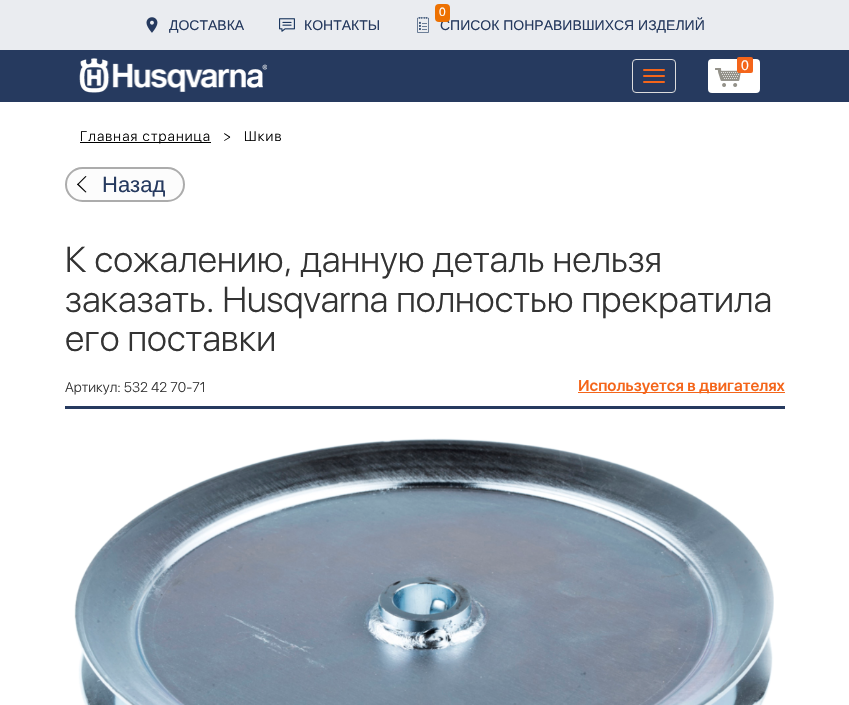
#include "include/core/SkBlurTypes.h"
#include "include/core/SkCanvas.h"
#include "include/core/SkData.h"
#include "include/core/SkFont.h"
#include "include/core/SkFontMgr.h"
#include "include/core/SkImage.h"
#include "include/core/SkMaskFilter.h"
#include "include/core/SkPaint.h"
#include "include/core/SkPathBuilder.h"
#include "include/core/SkTextBlob.h"
#include "include/effects/SkDashPathEffect.h"
#include "include/effects/SkGradientShader.h"
#include "include/utils/SkParsePath.h"

extern sk_sp<SkFontMgr> fontMgr;

void draw(SkCanvas* canvas) {
  SkPaint p;
  p.setAntiAlias(true);
  auto spacedText = [&](const char* s, float x, float y, const SkFont& font, const SkPaint& ink, float letter, float word) {
    std::vector<SkGlyphID> glyphs(font.countText(s, strlen(s), SkTextEncoding::kUTF8));
    std::vector<float> xs(glyphs.size());
    font.textToGlyphs(s, strlen(s), SkTextEncoding::kUTF8, glyphs);
    font.getXPos(glyphs, xs, x);
    float extra = 0;
    for (size_t i = 0; i < glyphs.size(); i++) {
      xs[i] += extra;
      extra += letter + word * (glyphs[i] == font.unicharToGlyph(' '));
    }
    canvas->drawTextBlob(SkTextBlob::MakeFromPosHGlyphs(glyphs, xs, y, font), 0, 0, ink);
  };
  canvas->clear(SK_ColorWHITE);
  p.setColor(SkColorSetRGB(234, 236, 240));
  canvas->drawRect(SkRect::MakeLTRB(0, 0, 849, 50), p);
  canvas->drawImageRect(SkImages::DeferredFromEncodedData(SkData::MakeFromFileName("images/1.png")), SkRect::MakeLTRB(146, 17, 158, 33), SkSamplingOptions());
  canvas->drawImageRect(SkImages::DeferredFromEncodedData(SkData::MakeFromFileName("images/2.png")), SkRect::MakeLTRB(279, 18, 295, 32), SkSamplingOptions());
  canvas->drawImageRect(SkImages::DeferredFromEncodedData(SkData::MakeFromFileName("images/3.png")), SkRect::MakeLTRB(417, 17, 429, 33), SkSamplingOptions());
  p.setColor(SkColorSetRGB(38, 58, 95));
  canvas->drawRect(SkRect::MakeLTRB(0, 50, 849, 102), p);
  canvas->drawImageRect(SkImages::DeferredFromEncodedData(SkData::MakeFromFileName("images/4.png")), SkRect::MakeLTRB(79, 58, 267, 93), SkSamplingOptions());
  p.setStyle(SkPaint::kStroke_Style);
  p.setStrokeWidth(1);
  p.setColor(SkColorSetRGB(221, 221, 221));
  canvas->drawRoundRect(SkRect::MakeLTRB(632.5f, 59.5f, 675.5f, 92.5f), 3.5f, 3.5f, p);
  p.setStyle(SkPaint::kFill_Style);
  p.setColor(SkColorSetRGB(244, 101, 26));
  canvas->drawRoundRect(SkRect::MakeLTRB(643, 69, 665, 71), 1, 1, p);
  canvas->drawRoundRect(SkRect::MakeLTRB(643, 75, 665, 77), 1, 1, p);
  canvas->drawRoundRect(SkRect::MakeLTRB(643, 81, 665, 83), 1, 1, p);
  p.setColor(SK_ColorWHITE);
  canvas->drawRoundRect(SkRect::MakeLTRB(708, 59, 760, 93), 4, 4, p);
  canvas->drawImageRect(SkImages::DeferredFromEncodedData(SkData::MakeFromFileName("images/5.png")), SkRect::MakeLTRB(715, 68, 741, 87), SkSamplingOptions());
  p.setColor(SkColorSetRGB(244, 101, 26));
  canvas->drawRoundRect(SkRect::MakeLTRB(737, 57, 753, 73), 2, 2, p);
  p.setColor(SK_ColorBLACK);
  canvas->drawRect(SkRect::MakeLTRB(80, 142, 211, 143), p);
  p.setColor(SkColorSetRGB(252, 252, 252));
  canvas->drawRoundRect(SkRect::MakeLTRB(66, 168, 184, 201), 16.5f, 16.5f, p);
  p.setStyle(SkPaint::kStroke_Style);
  p.setStrokeWidth(2);
  p.setColor(SkColorSetRGB(172, 172, 172));
  canvas->drawRoundRect(SkRect::MakeLTRB(66, 168, 184, 201), 16.5f, 16.5f, p);
  p.setStyle(SkPaint::kFill_Style);
  p.setColor(SK_ColorBLACK);
  canvas->drawPath(SkPathBuilder().moveTo(77, 184.5f).lineTo(85.5f, 176).lineTo(86.5f, 176.5f).lineTo(78, 185).close().detach(), p);
  canvas->drawPath(SkPathBuilder().moveTo(77, 184.5f).lineTo(78, 183.5f).lineTo(86.5f, 192).lineTo(85.5f, 192.5f).close().detach(), p);
  p.setColor(SkColorSetRGB(244, 101, 26));
  canvas->drawRect(SkRect::MakeLTRB(578, 392, 785, 393), p);
  p.setColor(SkColorSetRGB(38, 58, 95));
  canvas->drawRect(SkRect::MakeLTRB(65, 406, 785, 409), p);
  canvas->drawImageRect(SkImages::DeferredFromEncodedData(SkData::MakeFromFileName("images/6.png")), SkRect::MakeLTRB(74, 438, 774, 705), SkSamplingOptions());
  SkFont font1(fontMgr->matchFamilyStyle("Liberation Sans", SkFontStyle::Normal()), 14);
  font1.setSubpixel(true);
  canvas->drawString("ДОСТАВКА", 169, 30, font1, p);
  canvas->drawString("КОНТАКТЫ", 304, 30, font1, p);
  canvas->drawString("СПИСОК ПОНРАВИВШИХСЯ ИЗДЕЛИЙ", 440, 30, font1, p);
  p.setColor(SkColorSetRGB(237, 113, 2));
  canvas->drawRoundRect(SkRect::MakeLTRB(435, 4, 450, 22), 4, 4, p);
  SkFont font2(fontMgr->matchFamilyStyle("Liberation Sans", SkFontStyle::Normal()), 12);
  font2.setSubpixel(true);
  p.setColor(SK_ColorWHITE);
  canvas->drawString("0", 439, 16, font2, p);
  canvas->drawString("0", 741, 70, font1, p);
  SkFont font3(fontMgr->matchFamilyStyle("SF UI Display", SkFontStyle(300, SkFontStyle::kNormal_Width, SkFontStyle::kUpright_Slant)), 14);
  font3.setSubpixel(true);
  p.setColor(SK_ColorBLACK);
  spacedText("Главная страница", 80, 141, font3, p, 1.1f, 0);
  spacedText(">", 223, 141, font3, p, 1.1f, 0);
  spacedText("Шкив", 244, 141, font3, p, 1.1f, 0);
  SkFont font4(fontMgr->matchFamilyStyle("Liberation Sans", SkFontStyle::Normal()), 22);
  font4.setSubpixel(true);
  p.setColor(SkColorSetRGB(38, 58, 95));
  canvas->drawString("Назад", 102, 192, font4, p);
  SkFont font5(fontMgr->matchFamilyStyle("SF UI Display", SkFontStyle(300, SkFontStyle::kNormal_Width, SkFontStyle::kUpright_Slant)), 36);
  font5.setSubpixel(true);
  p.setColor(SkColorSetRGB(51, 51, 51));
  canvas->drawString("К сожалению, данную деталь нельзя", 65, 272, font5, p);
  canvas->drawString("заказать. Husqvarna полностью прекратила", 65, 312, font5, p);
  canvas->drawString("его поставки", 65, 351, font5, p);
  canvas->drawString("Артикул: 532 42 70-71", 65, 392, font3, p);
  SkFont font6(fontMgr->matchFamilyStyle("SF UI Display", SkFontStyle(600, SkFontStyle::kNormal_Width, SkFontStyle::kUpright_Slant)), 16);
  font6.setSubpixel(true);
  p.setColor(SkColorSetRGB(244, 101, 26));
  canvas->drawString("Используется в двигателях", 578, 391, font6, p);
}
